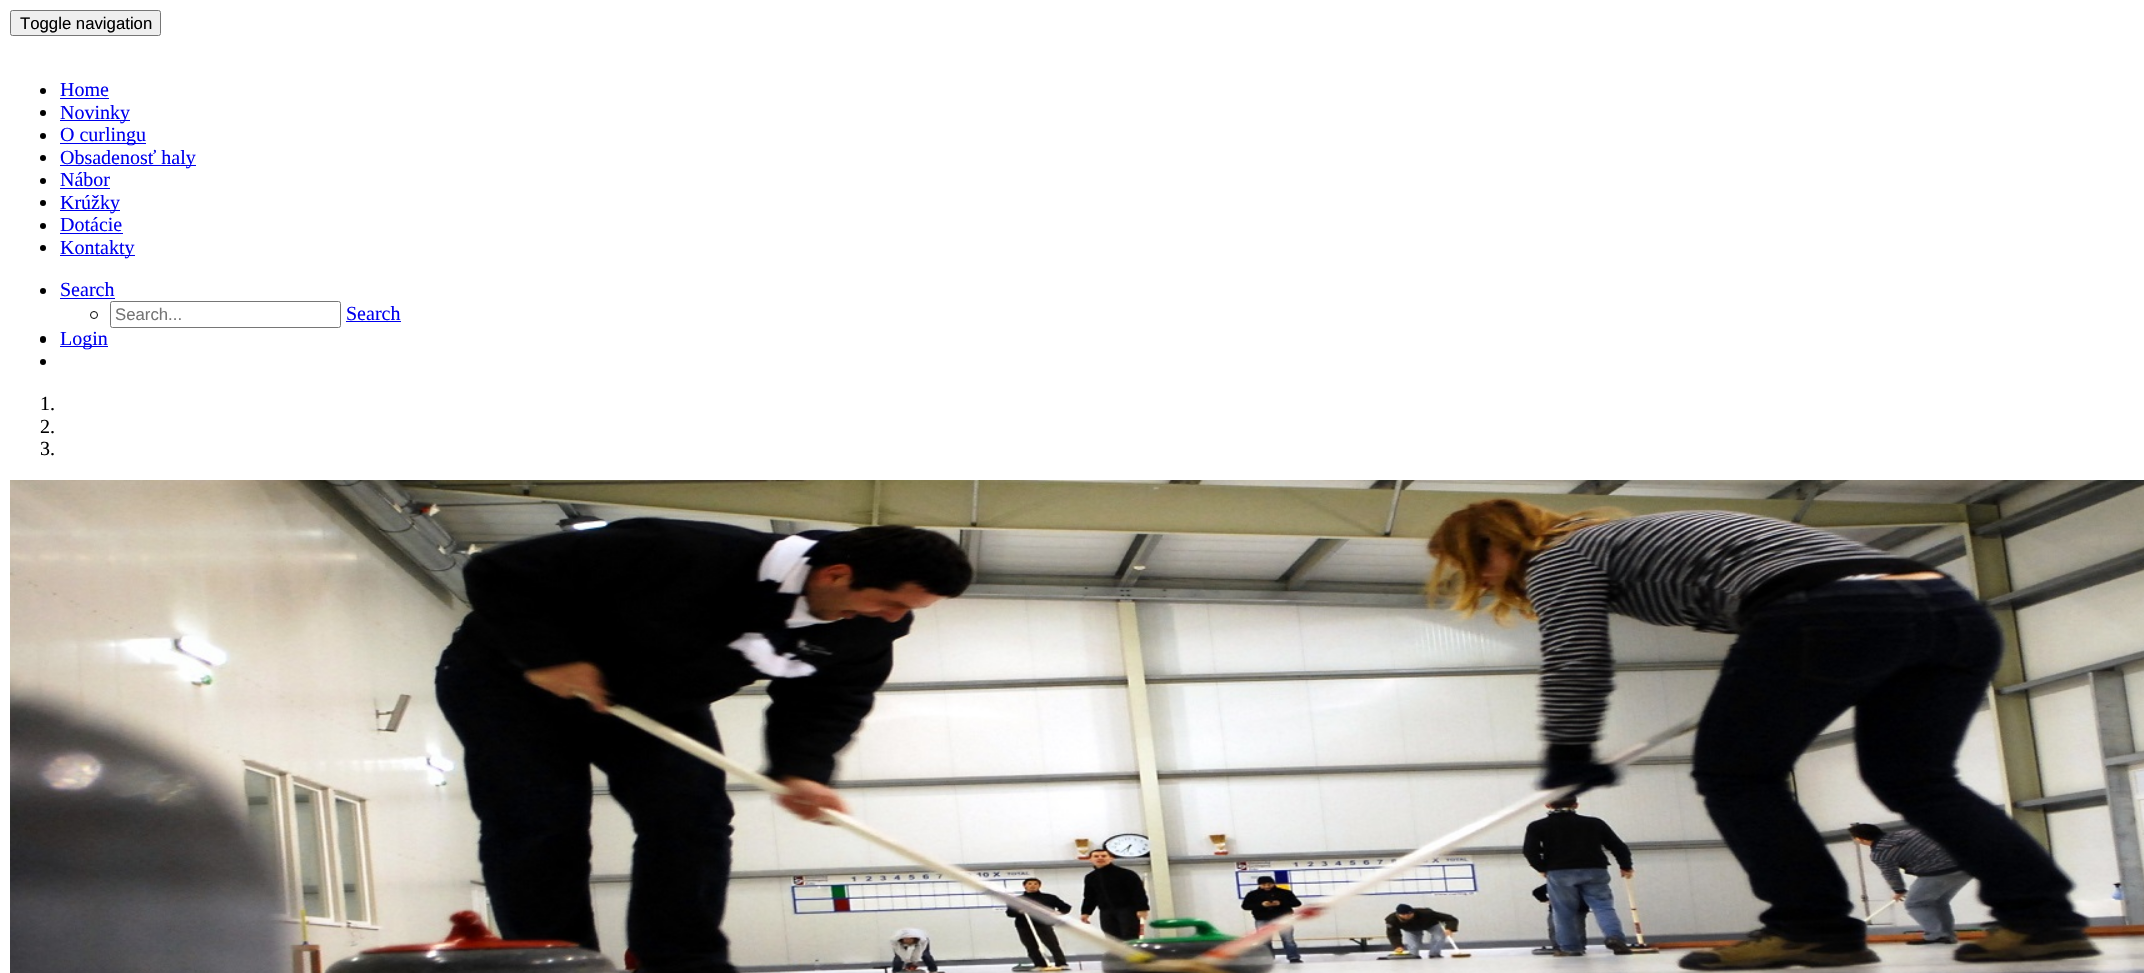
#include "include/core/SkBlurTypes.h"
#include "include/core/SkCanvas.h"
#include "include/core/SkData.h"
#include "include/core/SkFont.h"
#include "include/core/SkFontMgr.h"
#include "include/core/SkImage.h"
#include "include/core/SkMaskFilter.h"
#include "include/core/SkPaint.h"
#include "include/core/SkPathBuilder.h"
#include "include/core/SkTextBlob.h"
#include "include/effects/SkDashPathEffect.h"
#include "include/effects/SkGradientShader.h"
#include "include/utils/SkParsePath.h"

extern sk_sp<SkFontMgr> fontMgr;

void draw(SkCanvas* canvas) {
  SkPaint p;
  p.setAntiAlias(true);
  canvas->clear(SK_ColorWHITE);
  p.setColor(SkColorSetRGB(239, 239, 239));
  canvas->drawRoundRect(SkRect::MakeLTRB(10.5f, 10.5f, 160.5f, 35.5f), 2, 2, p);
  p.setStyle(SkPaint::kStroke_Style);
  p.setStrokeWidth(1);
  p.setColor(SkColorSetRGB(118, 118, 118));
  canvas->drawRoundRect(SkRect::MakeLTRB(10.5f, 10.5f, 160.5f, 35.5f), 2, 2, p);
  p.setStyle(SkPaint::kFill_Style);
  p.setColor(SK_ColorBLACK);
  canvas->drawCircle(43, 91, 3, p);
  p.setColor(SkColorSetRGB(0, 0, 238));
  canvas->drawRect(SkRect::MakeLTRB(60, 98, 109, 99), p);
  p.setColor(SK_ColorBLACK);
  canvas->drawCircle(43, 113, 3, p);
  p.setColor(SkColorSetRGB(0, 0, 238));
  canvas->drawRect(SkRect::MakeLTRB(60, 120, 130, 121), p);
  p.setColor(SK_ColorBLACK);
  canvas->drawCircle(43, 136, 3, p);
  p.setColor(SkColorSetRGB(0, 0, 238));
  canvas->drawRect(SkRect::MakeLTRB(60, 143, 146, 144), p);
  p.setColor(SK_ColorBLACK);
  canvas->drawCircle(43, 158, 3, p);
  p.setColor(SkColorSetRGB(0, 0, 238));
  canvas->drawRect(SkRect::MakeLTRB(60, 165, 196, 166), p);
  p.setColor(SK_ColorBLACK);
  canvas->drawCircle(43, 181, 3, p);
  p.setColor(SkColorSetRGB(0, 0, 238));
  canvas->drawRect(SkRect::MakeLTRB(60, 188, 110, 189), p);
  p.setColor(SK_ColorBLACK);
  canvas->drawCircle(43, 203, 3, p);
  p.setColor(SkColorSetRGB(0, 0, 238));
  canvas->drawRect(SkRect::MakeLTRB(60, 210, 120, 211), p);
  p.setColor(SK_ColorBLACK);
  canvas->drawCircle(43, 226, 3, p);
  p.setColor(SkColorSetRGB(0, 0, 238));
  canvas->drawRect(SkRect::MakeLTRB(60, 233, 123, 234), p);
  p.setColor(SK_ColorBLACK);
  canvas->drawCircle(43, 248, 3, p);
  p.setColor(SkColorSetRGB(0, 0, 238));
  canvas->drawRect(SkRect::MakeLTRB(60, 255, 135, 256), p);
  p.setColor(SK_ColorBLACK);
  canvas->drawCircle(43, 291, 3, p);
  p.setColor(SkColorSetRGB(0, 0, 238));
  canvas->drawRect(SkRect::MakeLTRB(60, 298, 115, 299), p);
  p.setStyle(SkPaint::kStroke_Style);
  p.setColor(SK_ColorBLACK);
  canvas->drawCircle(94, 315, 3.5f, p);
  p.setColor(SkColorSetRGB(118, 118, 118));
  canvas->drawRoundRect(SkRect::MakeLTRB(110.5f, 301.5f, 340.5f, 327.5f), 2, 2, p);
  p.setStyle(SkPaint::kFill_Style);
  p.setColor(SkColorSetRGB(0, 0, 238));
  canvas->drawRect(SkRect::MakeLTRB(346, 321, 401, 322), p);
  p.setColor(SK_ColorBLACK);
  canvas->drawRoundRect(SkRect::MakeLTRB(40, 336, 46, 343), 3, 3, p);
  p.setColor(SkColorSetRGB(0, 0, 238));
  canvas->drawRect(SkRect::MakeLTRB(60, 346, 108, 347), p);
  p.setColor(SK_ColorBLACK);
  canvas->drawCircle(43, 362, 3, p);
  canvas->drawImageRect(SkImages::DeferredFromEncodedData(SkData::MakeFromFileName("images/1.png")), SkRect::MakeLTRB(10, 480, 2144, 973), SkSamplingOptions());
  SkFont font1(fontMgr->matchFamilyStyle("Liberation Sans", SkFontStyle::Normal()), 16.75f);
  font1.setSubpixel(true);
  canvas->drawString("Toggle navigation", 20, 29, font1, p);
  SkFont font2(fontMgr->matchFamilyStyle("Liberation Serif", SkFontStyle::Normal()), 20);
  font2.setSubpixel(true);
  p.setColor(SkColorSetRGB(0, 0, 238));
  canvas->drawString("Home", 60, 96, font2, p);
  canvas->drawString("Novinky", 60, 119, font2, p);
  canvas->drawString("O curlingu", 60, 141, font2, p);
  canvas->drawString("Obsadenosť haly", 60, 164, font2, p);
  canvas->drawString("Nábor", 60, 186, font2, p);
  canvas->drawString("Krúžky", 60, 209, font2, p);
  canvas->drawString("Dotácie", 60, 231, font2, p);
  canvas->drawString("Kontakty", 60, 254, font2, p);
  canvas->drawString("Search", 60, 296, font2, p);
  p.setColor(SkColorSetRGB(117, 117, 117));
  canvas->drawString("Search...", 115, 320, font1, p);
  p.setColor(SkColorSetRGB(0, 0, 238));
  canvas->drawString("Search", 346, 320, font2, p);
  canvas->drawString("Login", 60, 345, font2, p);
  p.setColor(SK_ColorBLACK);
  canvas->drawString("1.", 40, 410, font2, p);
  canvas->drawString("2.", 40, 433, font2, p);
  canvas->drawString("3.", 40, 455, font2, p);
}
